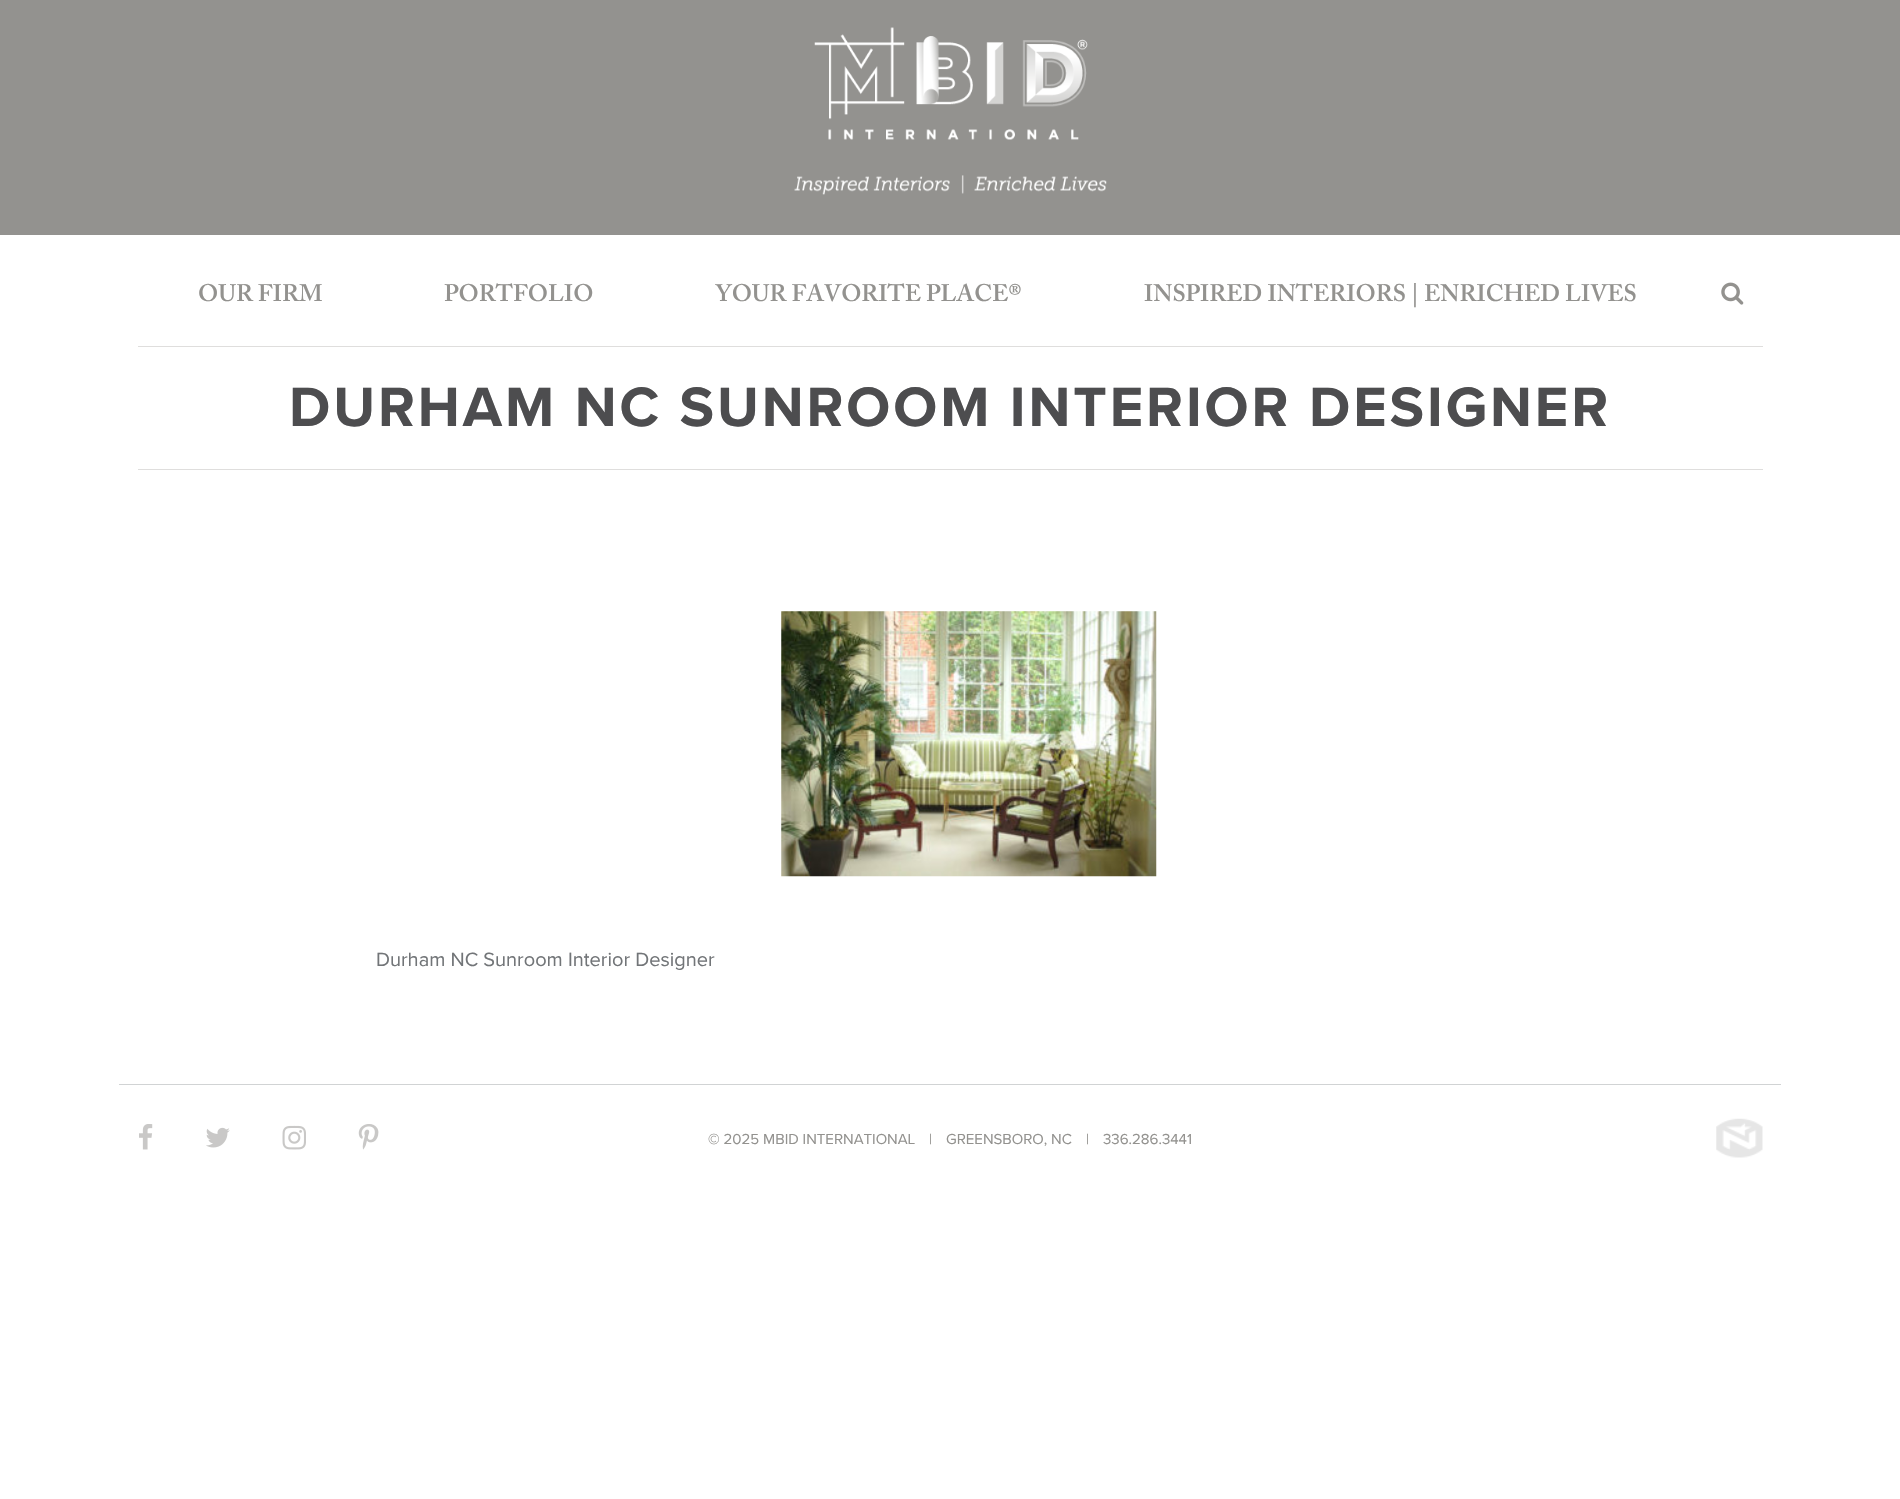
#include "include/core/SkBlurTypes.h"
#include "include/core/SkCanvas.h"
#include "include/core/SkData.h"
#include "include/core/SkFont.h"
#include "include/core/SkFontMgr.h"
#include "include/core/SkImage.h"
#include "include/core/SkMaskFilter.h"
#include "include/core/SkPaint.h"
#include "include/core/SkPathBuilder.h"
#include "include/core/SkTextBlob.h"
#include "include/effects/SkDashPathEffect.h"
#include "include/effects/SkGradientShader.h"
#include "include/utils/SkParsePath.h"

extern sk_sp<SkFontMgr> fontMgr;

void draw(SkCanvas* canvas) {
  SkPaint p;
  p.setAntiAlias(true);
  auto spacedText = [&](const char* s, float x, float y, const SkFont& font, const SkPaint& ink, float letter, float word) {
    std::vector<SkGlyphID> glyphs(font.countText(s, strlen(s), SkTextEncoding::kUTF8));
    std::vector<float> xs(glyphs.size());
    font.textToGlyphs(s, strlen(s), SkTextEncoding::kUTF8, glyphs);
    font.getXPos(glyphs, xs, x);
    float extra = 0;
    for (size_t i = 0; i < glyphs.size(); i++) {
      xs[i] += extra;
      extra += letter + word * (glyphs[i] == font.unicharToGlyph(' '));
    }
    canvas->drawTextBlob(SkTextBlob::MakeFromPosHGlyphs(glyphs, xs, y, font), 0, 0, ink);
  };
  canvas->clear(SK_ColorWHITE);
  p.setColor(SkColorSetRGB(147, 146, 143));
  canvas->drawRect(SkRect::MakeLTRB(0, 0, 1900, 235), p);
  canvas->drawImageRect(SkImages::DeferredFromEncodedData(SkData::MakeFromFileName("images/1.png")), SkRect::MakeLTRB(794, 27, 1107, 195), SkSamplingOptions());
  canvas->drawImageRect(SkImages::DeferredFromEncodedData(SkData::MakeFromFileName("images/2.png")), SkRect::MakeLTRB(1721, 282, 1744, 305), SkSamplingOptions());
  p.setColor(SkColorSetRGB(223, 222, 221));
  canvas->drawRect(SkRect::MakeLTRB(138, 346, 1763, 347), p);
  canvas->drawRect(SkRect::MakeLTRB(138, 469, 1763, 470), p);
  canvas->drawImageRect(SkImages::DeferredFromEncodedData(SkData::MakeFromFileName("images/3.png")), SkRect::MakeLTRB(781, 611, 1157, 877), SkSamplingOptions());
  p.setColor(SkColorSetRGB(209, 211, 212));
  canvas->drawRect(SkRect::MakeLTRB(119, 1084, 1781, 1085), p);
  canvas->drawImageRect(SkImages::DeferredFromEncodedData(SkData::MakeFromFileName("images/4.png")), SkRect::MakeLTRB(139, 1124, 153, 1150), SkSamplingOptions());
  canvas->drawImageRect(SkImages::DeferredFromEncodedData(SkData::MakeFromFileName("images/5.png")), SkRect::MakeLTRB(206, 1127, 230, 1148), SkSamplingOptions());
  canvas->drawImageRect(SkImages::DeferredFromEncodedData(SkData::MakeFromFileName("images/6.png")), SkRect::MakeLTRB(282, 1125, 306, 1150), SkSamplingOptions());
  canvas->drawImageRect(SkImages::DeferredFromEncodedData(SkData::MakeFromFileName("images/7.png")), SkRect::MakeLTRB(358, 1124, 379, 1150), SkSamplingOptions());
  canvas->drawImageRect(SkImages::DeferredFromEncodedData(SkData::MakeFromFileName("images/8.png")), SkRect::MakeLTRB(1716, 1118, 1763, 1158), SkSamplingOptions());
  SkFont font1(fontMgr->matchFamilyStyle("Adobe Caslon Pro", SkFontStyle(600, SkFontStyle::kNormal_Width, SkFontStyle::kUpright_Slant)), 23.75f);
  font1.setSubpixel(true);
  p.setColor(SkColorSetRGB(147, 146, 143));
  canvas->drawString("OUR FIRM", 198, 301, font1, p);
  canvas->drawString("PORTFOLIO", 444, 301, font1, p);
  canvas->drawString("YOUR FAVORITE PLACE®", 715, 301, font1, p);
  canvas->drawString("INSPIRED INTERIORS | ENRICHED LIVES", 1144, 301, font1, p);
  SkFont font2(fontMgr->matchFamilyStyle("Proxima Nova", SkFontStyle::Bold()), 57.5f);
  font2.setSubpixel(true);
  p.setColor(SkColorSetRGB(77, 77, 79));
  spacedText("DURHAM NC SUNROOM INTERIOR DESIGNER", 289, 426, font2, p, 2.9f, 0);
  SkFont font3(fontMgr->matchFamilyStyle("Proxima Nova", SkFontStyle::Normal()), 20);
  font3.setSubpixel(true);
  p.setColor(SkColorSetRGB(114, 117, 120));
  canvas->drawString("Durham NC Sunroom Interior Designer", 376, 966, font3, p);
  SkFont font4(fontMgr->matchFamilyStyle("Proxima Nova", SkFontStyle::Normal()), 15);
  font4.setSubpixel(true);
  p.setColor(SkColorSetRGB(147, 146, 143));
  canvas->drawString("© 2025 MBID INTERNATIONAL", 708, 1144, font4, p);
  canvas->drawString("|", 929, 1144, font4, p);
  canvas->drawString("GREENSBORO, NC", 946, 1144, font4, p);
  canvas->drawString("|", 1086, 1144, font4, p);
  canvas->drawString("336.286.3441", 1103, 1144, font4, p);
}
